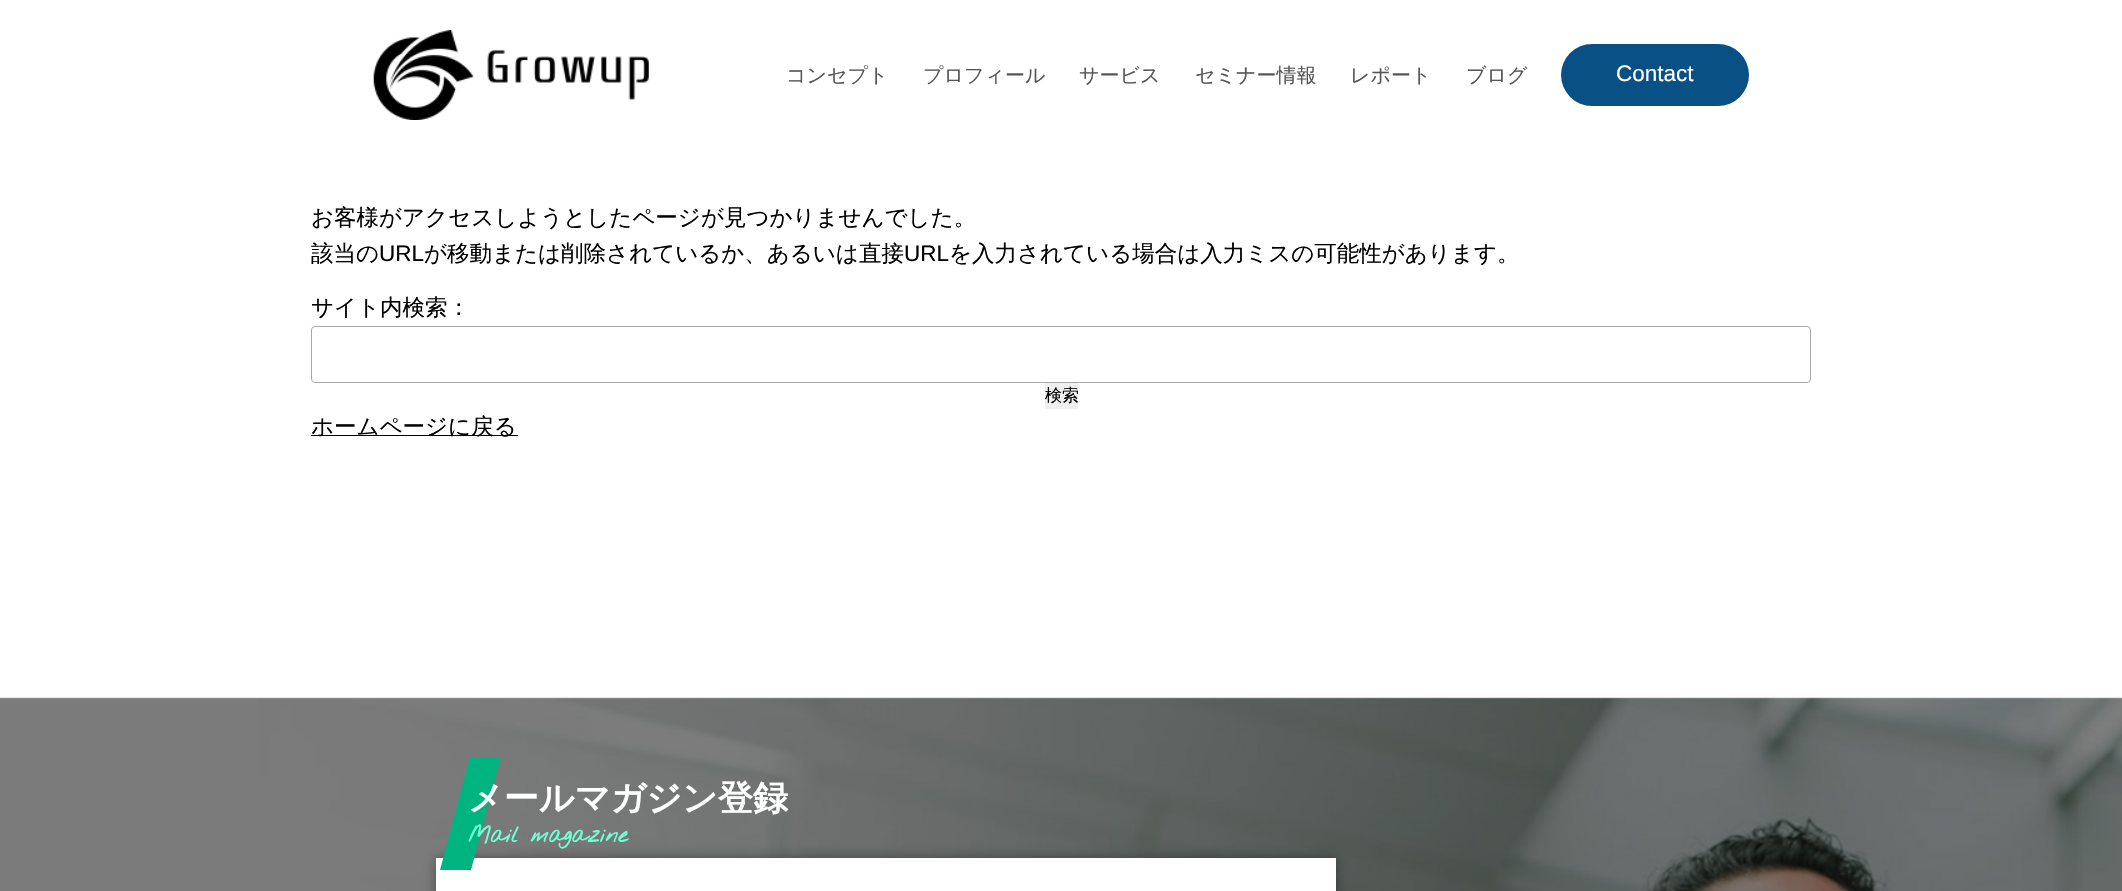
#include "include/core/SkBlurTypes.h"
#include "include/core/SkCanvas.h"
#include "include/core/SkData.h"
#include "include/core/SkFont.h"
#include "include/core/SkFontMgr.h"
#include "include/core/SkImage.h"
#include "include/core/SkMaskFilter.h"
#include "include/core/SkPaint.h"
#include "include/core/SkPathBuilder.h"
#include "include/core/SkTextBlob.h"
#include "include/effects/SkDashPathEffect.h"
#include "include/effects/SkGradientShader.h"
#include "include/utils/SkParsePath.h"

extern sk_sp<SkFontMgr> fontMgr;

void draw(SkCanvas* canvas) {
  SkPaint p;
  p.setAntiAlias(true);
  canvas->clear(SK_ColorWHITE);
  canvas->drawImageRect(SkImages::DeferredFromEncodedData(SkData::MakeFromFileName("images/1.png")), SkRect::MakeLTRB(373, 30, 649, 120), SkSamplingOptions());
  p.setColor(SkColorSetRGB(9, 80, 133));
  canvas->drawRoundRect(SkRect::MakeLTRB(1561, 44, 1749, 106), 31, 31, p);
  p.setStyle(SkPaint::kStroke_Style);
  p.setStrokeWidth(1);
  p.setColor(SkColorSetRGB(169, 169, 169));
  canvas->drawRoundRect(SkRect::MakeLTRB(311.5f, 326.5f, 1810.5f, 382.5f), 3.5f, 3.5f, p);
  p.setStyle(SkPaint::kFill_Style);
  p.setColor(SkColorSetRGB(239, 239, 239));
  canvas->drawRect(SkRect::MakeLTRB(1045, 383, 1078, 409), p);
  p.setColor(SK_ColorBLACK);
  canvas->drawRect(SkRect::MakeLTRB(311, 435, 518, 436), p);
  canvas->drawImageRect(SkImages::DeferredFromEncodedData(SkData::MakeFromFileName("images/2.png")), SkRect::MakeLTRB(0, 697, 2122, 891), SkSamplingOptions());
  p.setColor(SkColorSetARGB(94, 0, 0, 0));
  p.setMaskFilter(SkMaskFilter::MakeBlur(kNormal_SkBlurStyle, 6));
  canvas->drawRect(SkRect::MakeLTRB(436, 858, 1336, 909), p);
  p.setMaskFilter(nullptr);
  p.setColor(SK_ColorWHITE);
  canvas->drawRect(SkRect::MakeLTRB(436, 858, 1336, 891), p);
  p.setColor(SkColorSetRGB(0, 180, 127));
  canvas->drawPath(SkPathBuilder().moveTo(470, 757).lineTo(501, 757).lineTo(471, 870).lineTo(440, 870).close().detach(), p);
  SkFont font1(fontMgr->matchFamilyStyle("WenQuanYi Zen Hei", SkFontStyle(500, SkFontStyle::kNormal_Width, SkFontStyle::kUpright_Slant)), 20);
  font1.setSubpixel(true);
  p.setColor(SkColorSetRGB(85, 85, 85));
  canvas->drawString("コンセプト", 786, 82, font1, p);
  canvas->drawString("プロフィール", 923, 82, font1, p);
  canvas->drawString("サービス", 1079, 82, font1, p);
  canvas->drawString("セミナー情報", 1195, 82, font1, p);
  canvas->drawString("レポート", 1350, 82, font1, p);
  canvas->drawString("ブログ", 1466, 82, font1, p);
  SkFont font2(fontMgr->matchFamilyStyle("Liberation Sans", SkFontStyle::Normal()), 22.5f);
  font2.setSubpixel(true);
  p.setColor(SK_ColorWHITE);
  canvas->drawString("Contact", 1616, 81, font2, p);
  SkFont font3(fontMgr->matchFamilyStyle("WenQuanYi Zen Hei", SkFontStyle(500, SkFontStyle::kNormal_Width, SkFontStyle::kUpright_Slant)), 22.5f);
  font3.setSubpixel(true);
  p.setColor(SK_ColorBLACK);
  canvas->drawString("お客様がアクセスしようとしたページが見つかりませんでした。", 311, 225, font3, p);
  canvas->drawString("該当の", 311, 261, font3, p);
  canvas->drawString("URL", 379, 261, font2, p);
  canvas->drawString("が移動または削除されているか、あるいは直接", 424, 261, font3, p);
  canvas->drawString("URL", 904, 261, font2, p);
  canvas->drawString("を入力されている場合は入力ミスの可能性があります。", 949, 261, font3, p);
  canvas->drawString("サイト内検索：", 311, 315, font3, p);
  SkFont font4(fontMgr->matchFamilyStyle("WenQuanYi Zen Hei", SkFontStyle(500, SkFontStyle::kNormal_Width, SkFontStyle::kUpright_Slant)), 17);
  font4.setSubpixel(true);
  canvas->drawString("検索", 1045, 401, font4, p);
  canvas->drawString("ホームページに戻る", 311, 434, font3, p);
  SkFont font5(fontMgr->matchFamilyStyle("WenQuanYi Zen Hei", SkFontStyle::Bold()), 35);
  font5.setSubpixel(true);
  p.setColor(SK_ColorWHITE);
  canvas->drawString("メールマガジン登録", 468, 810, font5, p);
  SkFont font6(fontMgr->matchFamilyStyle("Nothing You Could Do", SkFontStyle::Bold()), 22.5f);
  font6.setSubpixel(true);
  p.setColor(SkColorSetRGB(113, 255, 213));
  canvas->drawString("Mail magazine", 468, 842, font6, p);
}
